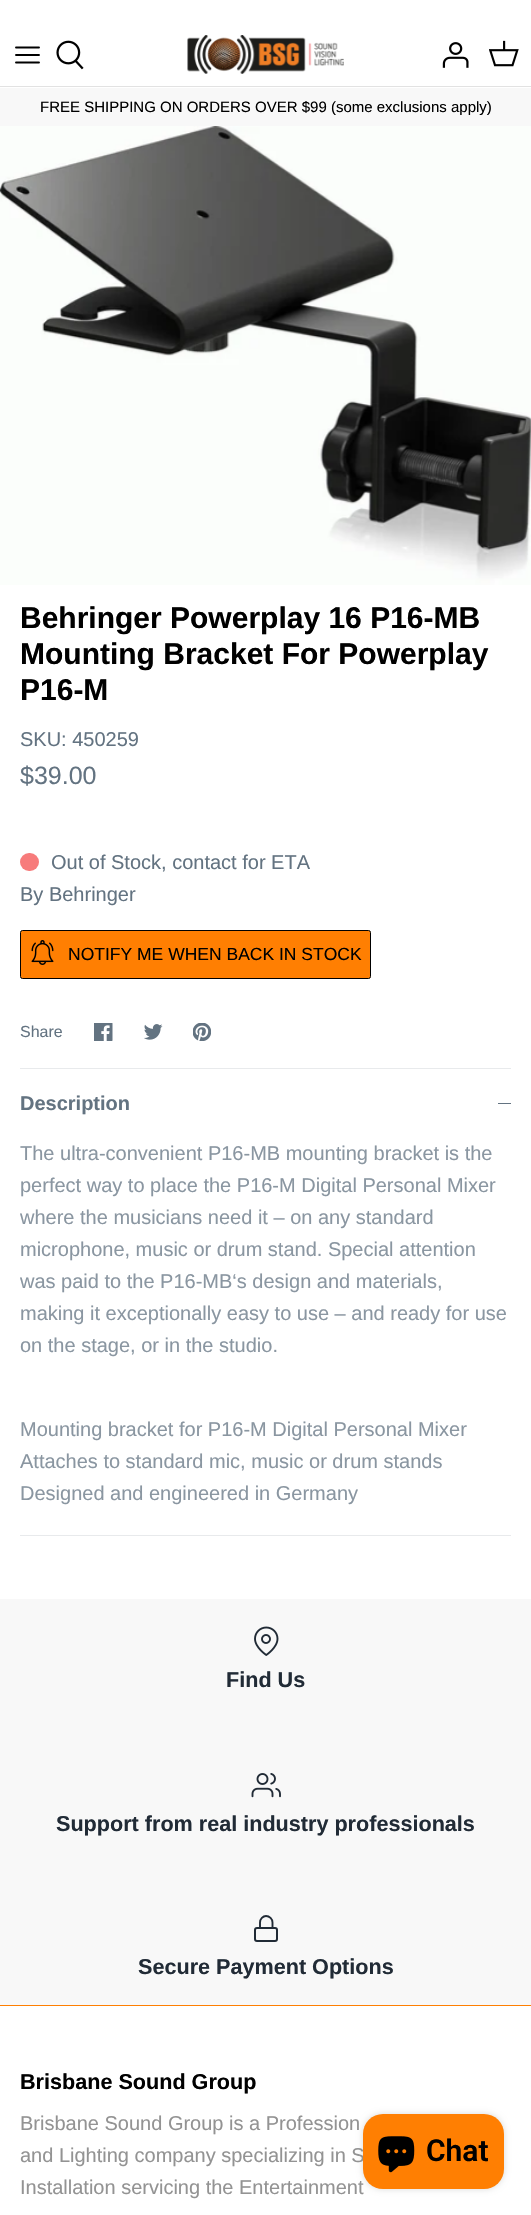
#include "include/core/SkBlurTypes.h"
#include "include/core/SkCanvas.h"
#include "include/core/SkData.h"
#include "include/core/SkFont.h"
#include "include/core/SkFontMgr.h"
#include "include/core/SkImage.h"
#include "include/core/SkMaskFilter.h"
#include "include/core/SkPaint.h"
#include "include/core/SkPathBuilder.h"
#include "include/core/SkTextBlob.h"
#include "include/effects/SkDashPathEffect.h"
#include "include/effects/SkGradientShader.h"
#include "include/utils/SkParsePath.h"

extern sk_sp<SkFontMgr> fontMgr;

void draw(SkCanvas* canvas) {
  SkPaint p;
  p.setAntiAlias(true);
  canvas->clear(SK_ColorWHITE);
  p.setColor(SkColorSetRGB(226, 226, 226));
  canvas->drawRect(SkRect::MakeLTRB(0, 86, 531, 87), p);
  p.setStyle(SkPaint::kStroke_Style);
  p.setStrokeWidth(1.9f);
  p.setStrokeCap(SkPaint::kRound_Cap);
  p.setStrokeJoin(SkPaint::kRound_Join);
  p.setColor(SK_ColorBLACK);
  canvas->drawPath(SkPathBuilder().moveTo(16, 55).lineTo(39, 55).moveTo(16, 47.5f).lineTo(39, 47.5f).moveTo(16, 62.5f).lineTo(39, 62.5f).detach(), p);
  canvas->drawImageRect(SkImages::DeferredFromEncodedData(SkData::MakeFromFileName("images/1.png")), SkRect::MakeLTRB(56, 40, 84, 70), SkSamplingOptions());
  canvas->drawImageRect(SkImages::DeferredFromEncodedData(SkData::MakeFromFileName("images/2.png")), SkRect::MakeLTRB(187, 35, 344, 74), SkSamplingOptions());
  canvas->drawImageRect(SkImages::DeferredFromEncodedData(SkData::MakeFromFileName("images/3.png")), SkRect::MakeLTRB(442, 42, 469, 68), SkSamplingOptions());
  canvas->drawImageRect(SkImages::DeferredFromEncodedData(SkData::MakeFromFileName("images/4.png")), SkRect::MakeLTRB(489, 40, 519, 67), SkSamplingOptions());
  p.setStyle(SkPaint::kFill_Style);
  p.setColor(SkColorSetRGB(248, 248, 248));
  canvas->drawRect(SkRect::MakeLTRB(0, 88, 531, 126), p);
  canvas->drawImageRect(SkImages::DeferredFromEncodedData(SkData::MakeFromFileName("images/5.png")), SkRect::MakeLTRB(0, 126, 531, 585), SkSamplingOptions());
  p.setColor(SkColorSetRGB(247, 123, 123));
  canvas->drawRoundRect(SkRect::MakeLTRB(20, 853, 39, 871), 9, 9, p);
  p.setColor(SkColorSetRGB(255, 127, 2));
  canvas->drawRoundRect(SkRect::MakeLTRB(20.5f, 930.5f, 370.5f, 978.5f), 2, 2, p);
  p.setStyle(SkPaint::kStroke_Style);
  p.setStrokeWidth(1);
  p.setStrokeCap(SkPaint::kButt_Cap);
  p.setStrokeJoin(SkPaint::kMiter_Join);
  p.setColor(SK_ColorBLACK);
  canvas->drawRoundRect(SkRect::MakeLTRB(20.5f, 930.5f, 370.5f, 978.5f), 2, 2, p);
  canvas->drawImageRect(SkImages::DeferredFromEncodedData(SkData::MakeFromFileName("images/6.png")), SkRect::MakeLTRB(31, 940, 54, 965), SkSamplingOptions());
  canvas->drawImageRect(SkImages::DeferredFromEncodedData(SkData::MakeFromFileName("images/7.png")), SkRect::MakeLTRB(94, 1023, 113, 1041), SkSamplingOptions());
  canvas->drawImageRect(SkImages::DeferredFromEncodedData(SkData::MakeFromFileName("images/8.png")), SkRect::MakeLTRB(144, 1024, 163, 1040), SkSamplingOptions());
  canvas->drawImageRect(SkImages::DeferredFromEncodedData(SkData::MakeFromFileName("images/9.png")), SkRect::MakeLTRB(193, 1023, 211, 1041), SkSamplingOptions());
  p.setStyle(SkPaint::kFill_Style);
  p.setColor(SkColorSetRGB(232, 234, 236));
  canvas->drawRect(SkRect::MakeLTRB(20, 1068, 511, 1069), p);
  canvas->drawRect(SkRect::MakeLTRB(20, 1535, 511, 1536), p);
  p.setColor(SkColorSetRGB(99, 115, 129));
  canvas->drawRect(SkRect::MakeLTRB(498, 1103, 511, 1104), p);
  p.setColor(SkColorSetRGB(248, 248, 248));
  canvas->drawRect(SkRect::MakeLTRB(0, 1599, 531, 2005), p);
  canvas->drawImageRect(SkImages::DeferredFromEncodedData(SkData::MakeFromFileName("images/10.png")), SkRect::MakeLTRB(254, 1626, 279, 1656), SkSamplingOptions());
  canvas->drawImageRect(SkImages::DeferredFromEncodedData(SkData::MakeFromFileName("images/11.png")), SkRect::MakeLTRB(251, 1773, 281, 1798), SkSamplingOptions());
  p.setStyle(SkPaint::kStroke_Style);
  p.setStrokeWidth(2);
  p.setColor(SkColorSetRGB(33, 43, 54));
  canvas->drawRoundRect(SkRect::MakeLTRB(255, 1928, 277, 1941), 2, 2, p);
  p.setStrokeWidth(1.9f);
  p.setStrokeCap(SkPaint::kRound_Cap);
  p.setStrokeJoin(SkPaint::kRound_Join);
  canvas->drawPath(SkPathBuilder().moveTo(260, 1927.5f).lineTo(260, 1922.5f).cubicTo(260, 1919, 263, 1916, 266, 1916).cubicTo(269.5f, 1916, 272.5f, 1919, 272.5f, 1922.5f).lineTo(272.5f, 1927.5f).detach(), p);
  p.setStyle(SkPaint::kFill_Style);
  p.setColor(SkColorSetRGB(255, 127, 2));
  canvas->drawRect(SkRect::MakeLTRB(0, 2005, 531, 2006), p);
  p.setColor(SkColorSetARGB(38, 0, 0, 0));
  p.setMaskFilter(SkMaskFilter::MakeBlur(kNormal_SkBlurStyle, 3));
  canvas->drawRoundRect(SkRect::MakeLTRB(363, 2114, 504, 2189), 20, 20, p);
  p.setMaskFilter(nullptr);
  SkFont font1(fontMgr->matchFamilyStyle("Liberation Sans", SkFontStyle::Normal()), 15);
  font1.setSubpixel(true);
  p.setColor(SK_ColorBLACK);
  canvas->drawString("FREE SHIPPING ON ORDERS OVER $99 (some exclusions apply)", 40, 112, font1, p);
  SkFont font2(fontMgr->matchFamilyStyle("Liberation Sans", SkFontStyle::Bold()), 30);
  font2.setSubpixel(true);
  canvas->drawString("Behringer Powerplay 16 P16-MB", 20, 628, font2, p);
  canvas->drawString("Mounting Bracket For Powerplay", 20, 664, font2, p);
  canvas->drawString("P16-M", 20, 700, font2, p);
  SkFont font3(fontMgr->matchFamilyStyle("Liberation Sans", SkFontStyle::Normal()), 20);
  font3.setSubpixel(true);
  p.setColor(SkColorSetRGB(99, 115, 129));
  canvas->drawString("SKU: 450259", 20, 746, font3, p);
  SkFont font4(fontMgr->matchFamilyStyle("Liberation Sans", SkFontStyle::Normal()), 25);
  font4.setSubpixel(true);
  canvas->drawString("$39.00", 20, 784, font4, p);
  canvas->drawString("Out of Stock, contact for ETA", 51, 869, font3, p);
  canvas->drawString("By Behringer", 20, 901, font3, p);
  SkFont font5(fontMgr->matchFamilyStyle("Liberation Sans", SkFontStyle::Normal()), 17.5f);
  font5.setSubpixel(true);
  p.setColor(SK_ColorBLACK);
  canvas->drawString("NOTIFY ME WHEN BACK IN STOCK", 68, 960, font5, p);
  SkFont font6(fontMgr->matchFamilyStyle("Liberation Sans", SkFontStyle::Normal()), 16);
  font6.setSubpixel(true);
  p.setColor(SkColorSetRGB(99, 115, 129));
  canvas->drawString("Share", 20, 1037, font6, p);
  SkFont font7(fontMgr->matchFamilyStyle("Liberation Sans", SkFontStyle::Bold()), 20);
  font7.setSubpixel(true);
  canvas->drawString("Description", 20, 1110, font7, p);
  p.setColor(SkColorSetRGB(138, 150, 161));
  canvas->drawString("The ultra-convenient P16-MB mounting bracket is the", 20, 1160, font3, p);
  canvas->drawString("perfect way to place the P16-M Digital Personal Mixer", 20, 1192, font3, p);
  canvas->drawString("where the musicians need it – on any standard", 20, 1224, font3, p);
  canvas->drawString("microphone, music or drum stand. Special attention", 20, 1256, font3, p);
  canvas->drawString("was paid to the P16-MB‘s design and materials,", 20, 1288, font3, p);
  canvas->drawString("making it exceptionally easy to use – and ready for use", 20, 1320, font3, p);
  canvas->drawString("on the stage, or in the studio.", 20, 1352, font3, p);
  canvas->drawString("Mounting bracket for P16-M Digital Personal Mixer", 20, 1436, font3, p);
  canvas->drawString("Attaches to standard mic, music or drum stands", 20, 1468, font3, p);
  canvas->drawString("Designed and engineered in Germany", 20, 1500, font3, p);
  SkFont font8(fontMgr->matchFamilyStyle("Liberation Sans", SkFontStyle::Bold()), 21.6f);
  font8.setSubpixel(true);
  p.setColor(SkColorSetRGB(33, 43, 54));
  canvas->drawString("Find Us", 226, 1687, font8, p);
  canvas->drawString("Support from real industry professionals", 56, 1831, font8, p);
  canvas->drawString("Secure Payment Options", 138, 1974, font8, p);
  p.setColor(SK_ColorBLACK);
  canvas->drawString("Brisbane Sound Group", 20, 2089, font8, p);
  p.setColor(SkColorSetRGB(147, 147, 147));
  canvas->drawString("Brisbane Sound Group is a Profession", 20, 2130, font3, p);
  canvas->drawString("and Lighting company specializing in S", 20, 2162, font3, p);
  canvas->drawString("Installation servicing the Entertainment", 20, 2194, font3, p);
  p.setColor(SkColorSetRGB(255, 127, 2));
  canvas->drawRoundRect(SkRect::MakeLTRB(363, 2114, 504, 2189), 20, 20, p);
  canvas->drawImageRect(SkImages::DeferredFromEncodedData(SkData::MakeFromFileName("images/12.png")), SkRect::MakeLTRB(378, 2136, 415, 2173), SkSamplingOptions());
  SkFont font9(fontMgr->matchFamilyStyle("Roboto", SkFontStyle(600, SkFontStyle::kNormal_Width, SkFontStyle::kUpright_Slant)), 30);
  font9.setSubpixel(true);
  p.setColor(SK_ColorBLACK);
  canvas->drawString("Chat", 426, 2161, font9, p);
}
